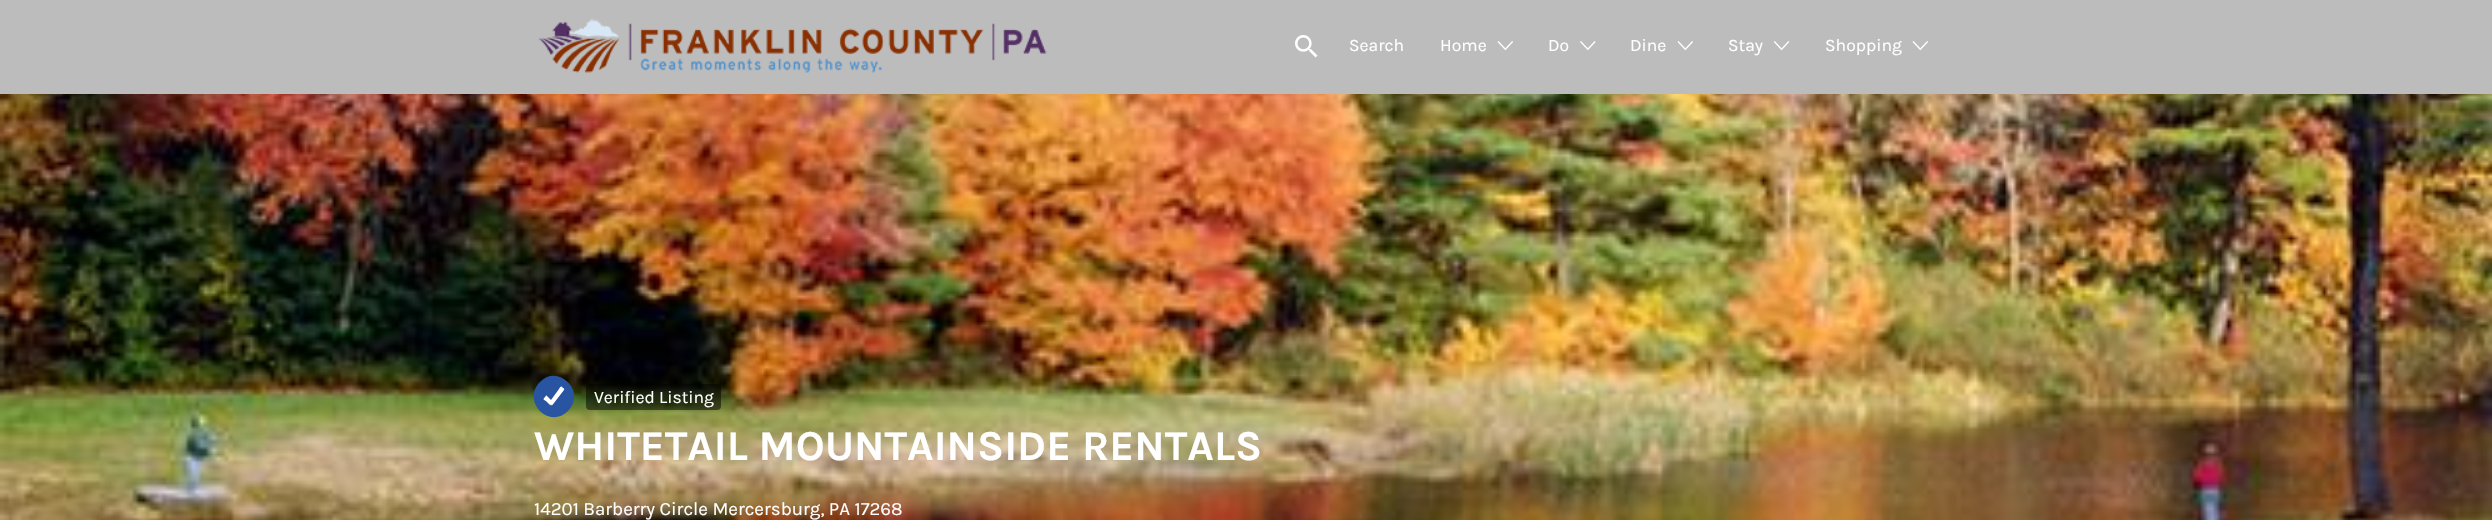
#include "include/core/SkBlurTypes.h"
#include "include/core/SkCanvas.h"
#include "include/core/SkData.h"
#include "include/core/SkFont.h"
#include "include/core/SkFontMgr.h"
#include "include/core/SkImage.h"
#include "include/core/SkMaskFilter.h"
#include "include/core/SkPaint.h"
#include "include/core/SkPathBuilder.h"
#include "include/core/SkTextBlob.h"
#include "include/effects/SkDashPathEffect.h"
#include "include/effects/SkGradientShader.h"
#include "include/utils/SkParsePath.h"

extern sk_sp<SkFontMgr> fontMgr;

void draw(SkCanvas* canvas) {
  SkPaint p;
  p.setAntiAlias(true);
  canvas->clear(SK_ColorWHITE);
  p.setColor(SkColorSetRGB(188, 188, 188));
  canvas->drawRect(SkRect::MakeLTRB(0, 0, 2492, 94), p);
  canvas->drawImageRect(SkImages::DeferredFromEncodedData(SkData::MakeFromFileName("images/1.png")), SkRect::MakeLTRB(538, 18, 1047, 73), SkSamplingOptions());
  canvas->drawImageRect(SkImages::DeferredFromEncodedData(SkData::MakeFromFileName("images/2.png")), SkRect::MakeLTRB(1295, 35, 1318, 58), SkSamplingOptions());
  canvas->drawImageRect(SkImages::DeferredFromEncodedData(SkData::MakeFromFileName("images/3.png")), SkRect::MakeLTRB(1497, 41, 1513, 51), SkSamplingOptions());
  canvas->drawImageRect(SkImages::DeferredFromEncodedData(SkData::MakeFromFileName("images/4.png")), SkRect::MakeLTRB(1580, 41, 1596, 51), SkSamplingOptions());
  canvas->drawImageRect(SkImages::DeferredFromEncodedData(SkData::MakeFromFileName("images/3.png")), SkRect::MakeLTRB(1677, 41, 1693, 51), SkSamplingOptions());
  canvas->drawImageRect(SkImages::DeferredFromEncodedData(SkData::MakeFromFileName("images/5.png")), SkRect::MakeLTRB(1774, 41, 1790, 51), SkSamplingOptions());
  canvas->drawImageRect(SkImages::DeferredFromEncodedData(SkData::MakeFromFileName("images/3.png")), SkRect::MakeLTRB(1912, 41, 1928, 51), SkSamplingOptions());
  canvas->drawImageRect(SkImages::DeferredFromEncodedData(SkData::MakeFromFileName("images/6.png")), SkRect::MakeLTRB(0, 94, 2492, 520), SkSamplingOptions());
  p.setColor(SK_ColorWHITE);
  canvas->drawCircle(552.5f, 392.5f, 12.5f, p);
  p.setColor(SkColorSetRGB(40, 84, 161));
  canvas->drawPath(SkPathBuilder().moveTo(540, 382).cubicTo(558, 363, 587, 392, 568, 411).cubicTo(549, 430, 521, 401, 540, 382).close().moveTo(564, 390).cubicTo(565, 389, 564, 388, 563, 388).cubicTo(561, 386, 561, 386, 559, 389).lineTo(551, 400).lineTo(547, 396).cubicTo(546, 395, 546, 396, 545, 397).cubicTo(542, 400, 544, 399, 547, 402).cubicTo(552, 407, 550, 408, 554, 403).close().detach(), p);
  p.setColor(SkColorSetARGB(128, 0, 0, 0));
  canvas->drawRoundRect(SkRect::MakeLTRB(586, 384, 721, 410), 4, 4, p);
  SkFont font1(fontMgr->matchFamilyStyle("Karla", SkFontStyle::Normal()), 17.5f);
  font1.setSubpixel(true);
  p.setColor(SK_ColorWHITE);
  canvas->drawString("Search", 1349, 51, font1, p);
  canvas->drawString("Home", 1440, 51, font1, p);
  canvas->drawString("Do", 1548, 51, font1, p);
  canvas->drawString("Dine", 1630, 51, font1, p);
  canvas->drawString("Stay", 1728, 51, font1, p);
  canvas->drawString("Shopping", 1825, 51, font1, p);
  canvas->drawString("Verified Listing", 594, 403, font1, p);
  SkFont font2(fontMgr->matchFamilyStyle("Karla", SkFontStyle::Bold()), 42.5f);
  font2.setSubpixel(true);
  canvas->drawString("WHITETAIL MOUNTAINSIDE RENTALS", 534, 460, font2, p);
  SkFont font3(fontMgr->matchFamilyStyle("Karla", SkFontStyle::Normal()), 18.75f);
  font3.setSubpixel(true);
  canvas->drawString("14201 Barberry Circle Mercersburg, PA 17268", 534, 515, font3, p);
}
